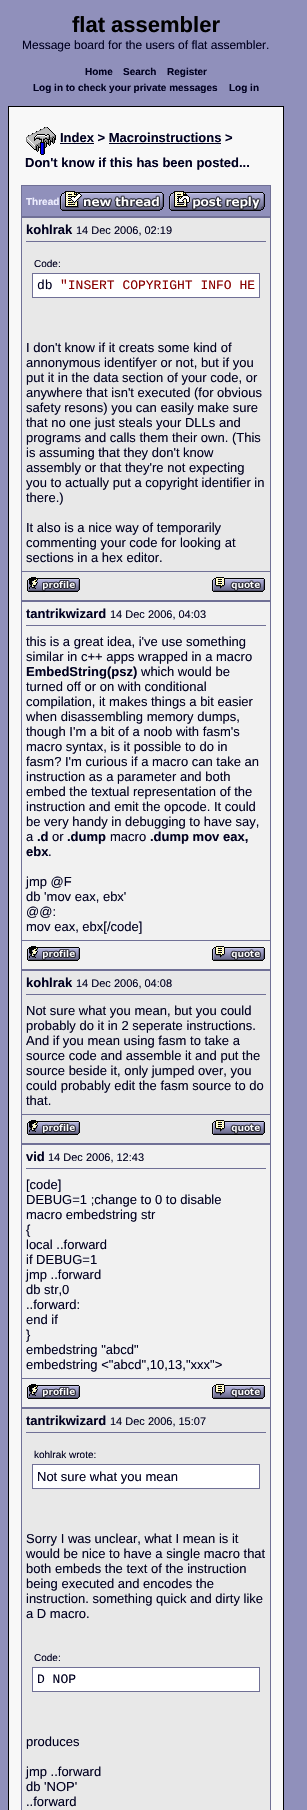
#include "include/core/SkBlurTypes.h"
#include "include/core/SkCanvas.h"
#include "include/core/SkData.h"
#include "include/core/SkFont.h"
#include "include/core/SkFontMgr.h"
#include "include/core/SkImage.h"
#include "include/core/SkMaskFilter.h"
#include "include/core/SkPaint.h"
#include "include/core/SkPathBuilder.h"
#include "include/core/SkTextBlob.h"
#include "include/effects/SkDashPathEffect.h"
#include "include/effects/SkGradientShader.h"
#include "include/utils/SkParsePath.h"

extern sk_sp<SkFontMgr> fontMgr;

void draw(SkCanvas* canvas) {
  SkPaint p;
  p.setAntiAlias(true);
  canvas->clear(SkColorSetRGB(144, 144, 187));
  p.setColor(SkColorSetRGB(248, 248, 248));
  canvas->drawRect(SkRect::MakeLTRB(8.5f, 106.5f, 283.5f, 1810.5f), p);
  p.setStyle(SkPaint::kStroke_Style);
  p.setStrokeWidth(1);
  p.setColor(SK_ColorBLACK);
  canvas->drawRect(SkRect::MakeLTRB(8.5f, 106.5f, 283.5f, 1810.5f), p);
  canvas->drawImageRect(SkImages::DeferredFromEncodedData(SkData::MakeFromFileName("images/1.png")), SkRect::MakeLTRB(26, 127, 56, 155), SkSamplingOptions());
  p.setStyle(SkPaint::kFill_Style);
  p.setColor(SkColorSetRGB(0, 0, 32));
  canvas->drawRect(SkRect::MakeLTRB(60, 143, 94, 144), p);
  canvas->drawRect(SkRect::MakeLTRB(109, 143, 221, 144), p);
  p.setColor(SkColorSetRGB(112, 112, 150));
  canvas->drawRect(SkRect::MakeLTRB(21, 185, 271, 186), p);
  canvas->drawRect(SkRect::MakeLTRB(270, 185, 271, 217), p);
  canvas->drawRect(SkRect::MakeLTRB(21, 216, 271, 218), p);
  canvas->drawRect(SkRect::MakeLTRB(21, 185, 22, 217), p);
  p.setColor(SkColorSetRGB(144, 144, 187));
  canvas->drawRect(SkRect::MakeLTRB(22, 186, 270, 216), p);
  canvas->drawImageRect(SkImages::DeferredFromEncodedData(SkData::MakeFromFileName("images/2.png")), SkRect::MakeLTRB(60, 191, 164, 211), SkSamplingOptions());
  canvas->drawImageRect(SkImages::DeferredFromEncodedData(SkData::MakeFromFileName("images/3.png")), SkRect::MakeLTRB(169, 191, 265, 211), SkSamplingOptions());
  p.setColor(SkColorSetRGB(112, 112, 150));
  canvas->drawRect(SkRect::MakeLTRB(270, 217, 271, 601), p);
  canvas->drawRect(SkRect::MakeLTRB(21, 600, 271, 602), p);
  canvas->drawRect(SkRect::MakeLTRB(21, 217, 22, 601), p);
  p.setColor(SkColorSetRGB(232, 232, 232));
  canvas->drawRect(SkRect::MakeLTRB(22, 218, 270, 571), p);
  p.setColor(SkColorSetRGB(112, 112, 150));
  canvas->drawRect(SkRect::MakeLTRB(26, 241, 266, 242), p);
  p.setColor(SK_ColorWHITE);
  canvas->drawRect(SkRect::MakeLTRB(32.5f, 273.5f, 259.5f, 297.5f), p);
  p.setStyle(SkPaint::kStroke_Style);
  p.setColor(SkColorSetRGB(112, 112, 150));
  canvas->drawRect(SkRect::MakeLTRB(32.5f, 273.5f, 259.5f, 297.5f), p);
  p.setStyle(SkPaint::kFill_Style);
  canvas->drawRect(SkRect::MakeLTRB(21, 571, 271, 572), p);
  p.setColor(SkColorSetRGB(232, 232, 232));
  canvas->drawRect(SkRect::MakeLTRB(22, 572, 270, 600), p);
  canvas->drawImageRect(SkImages::DeferredFromEncodedData(SkData::MakeFromFileName("images/4.png")), SkRect::MakeLTRB(27, 577, 80, 592), SkSamplingOptions());
  canvas->drawImageRect(SkImages::DeferredFromEncodedData(SkData::MakeFromFileName("images/5.png")), SkRect::MakeLTRB(212, 577, 265, 592), SkSamplingOptions());
  p.setColor(SkColorSetRGB(112, 112, 150));
  canvas->drawRect(SkRect::MakeLTRB(270, 601, 271, 970), p);
  canvas->drawRect(SkRect::MakeLTRB(21, 969, 271, 971), p);
  canvas->drawRect(SkRect::MakeLTRB(21, 601, 22, 970), p);
  p.setColor(SkColorSetRGB(241, 241, 241));
  canvas->drawRect(SkRect::MakeLTRB(22, 602, 270, 940), p);
  p.setColor(SkColorSetRGB(112, 112, 150));
  canvas->drawRect(SkRect::MakeLTRB(26, 625, 266, 626), p);
  canvas->drawRect(SkRect::MakeLTRB(21, 940, 271, 941), p);
  p.setColor(SkColorSetRGB(241, 241, 241));
  canvas->drawRect(SkRect::MakeLTRB(22, 941, 270, 969), p);
  canvas->drawImageRect(SkImages::DeferredFromEncodedData(SkData::MakeFromFileName("images/6.png")), SkRect::MakeLTRB(27, 946, 80, 961), SkSamplingOptions());
  canvas->drawImageRect(SkImages::DeferredFromEncodedData(SkData::MakeFromFileName("images/7.png")), SkRect::MakeLTRB(212, 946, 265, 961), SkSamplingOptions());
  p.setColor(SkColorSetRGB(112, 112, 150));
  canvas->drawRect(SkRect::MakeLTRB(270, 970, 271, 1144), p);
  canvas->drawRect(SkRect::MakeLTRB(21, 1143, 271, 1145), p);
  canvas->drawRect(SkRect::MakeLTRB(21, 970, 22, 1144), p);
  p.setColor(SkColorSetRGB(232, 232, 232));
  canvas->drawRect(SkRect::MakeLTRB(22, 971, 270, 1114), p);
  p.setColor(SkColorSetRGB(112, 112, 150));
  canvas->drawRect(SkRect::MakeLTRB(26, 994, 266, 995), p);
  canvas->drawRect(SkRect::MakeLTRB(21, 1114, 271, 1115), p);
  p.setColor(SkColorSetRGB(232, 232, 232));
  canvas->drawRect(SkRect::MakeLTRB(22, 1115, 270, 1143), p);
  canvas->drawImageRect(SkImages::DeferredFromEncodedData(SkData::MakeFromFileName("images/4.png")), SkRect::MakeLTRB(27, 1120, 80, 1135), SkSamplingOptions());
  canvas->drawImageRect(SkImages::DeferredFromEncodedData(SkData::MakeFromFileName("images/5.png")), SkRect::MakeLTRB(212, 1120, 265, 1135), SkSamplingOptions());
  p.setColor(SkColorSetRGB(112, 112, 150));
  canvas->drawRect(SkRect::MakeLTRB(270, 1144, 271, 1408), p);
  canvas->drawRect(SkRect::MakeLTRB(21, 1407, 271, 1409), p);
  canvas->drawRect(SkRect::MakeLTRB(21, 1144, 22, 1810), p);
  p.setColor(SkColorSetRGB(241, 241, 241));
  canvas->drawRect(SkRect::MakeLTRB(22, 1145, 270, 1378), p);
  p.setColor(SkColorSetRGB(112, 112, 150));
  canvas->drawRect(SkRect::MakeLTRB(26, 1168, 266, 1169), p);
  canvas->drawRect(SkRect::MakeLTRB(21, 1378, 271, 1379), p);
  p.setColor(SkColorSetRGB(241, 241, 241));
  canvas->drawRect(SkRect::MakeLTRB(22, 1379, 270, 1407), p);
  canvas->drawImageRect(SkImages::DeferredFromEncodedData(SkData::MakeFromFileName("images/6.png")), SkRect::MakeLTRB(27, 1384, 80, 1399), SkSamplingOptions());
  canvas->drawImageRect(SkImages::DeferredFromEncodedData(SkData::MakeFromFileName("images/7.png")), SkRect::MakeLTRB(212, 1384, 265, 1399), SkSamplingOptions());
  p.setColor(SkColorSetRGB(112, 112, 150));
  canvas->drawRect(SkRect::MakeLTRB(270, 1408, 271, 1810), p);
  p.setColor(SkColorSetRGB(232, 232, 232));
  canvas->drawRect(SkRect::MakeLTRB(22, 1409, 270, 1810), p);
  p.setColor(SkColorSetRGB(112, 112, 150));
  canvas->drawRect(SkRect::MakeLTRB(26, 1432, 266, 1433), p);
  p.setColor(SK_ColorWHITE);
  canvas->drawRect(SkRect::MakeLTRB(32.5f, 1464.5f, 259.5f, 1488.5f), p);
  p.setStyle(SkPaint::kStroke_Style);
  p.setColor(SkColorSetRGB(112, 112, 150));
  canvas->drawRect(SkRect::MakeLTRB(32.5f, 1464.5f, 259.5f, 1488.5f), p);
  p.setStyle(SkPaint::kFill_Style);
  p.setColor(SK_ColorWHITE);
  canvas->drawRect(SkRect::MakeLTRB(32.5f, 1667.5f, 259.5f, 1691.5f), p);
  p.setStyle(SkPaint::kStroke_Style);
  p.setColor(SkColorSetRGB(112, 112, 150));
  canvas->drawRect(SkRect::MakeLTRB(32.5f, 1667.5f, 259.5f, 1691.5f), p);
  SkFont font1(fontMgr->matchFamilyStyle("Liberation Sans", SkFontStyle::Bold()), 22);
  font1.setSubpixel(true);
  p.setStyle(SkPaint::kFill_Style);
  p.setColor(SK_ColorBLACK);
  canvas->drawString("flat assembler", 72, 32, font1, p);
  SkFont font2(fontMgr->matchFamilyStyle("Liberation Sans", SkFontStyle::Normal()), 12);
  font2.setSubpixel(true);
  p.setColor(SkColorSetRGB(0, 0, 32));
  canvas->drawString("Message board for the users of flat assembler.", 22, 49, font2, p);
  SkFont font3(fontMgr->matchFamilyStyle("Liberation Sans", SkFontStyle::Bold()), 10);
  font3.setSubpixel(true);
  canvas->drawString("Home", 85, 75, font3, p);
  canvas->drawString("Search", 123, 75, font3, p);
  canvas->drawString("Register", 167, 75, font3, p);
  canvas->drawString("Log in to check your private messages", 33, 91, font3, p);
  canvas->drawString("Log in", 229, 91, font3, p);
  SkFont font4(fontMgr->matchFamilyStyle("Liberation Sans", SkFontStyle::Bold()), 13);
  font4.setSubpixel(true);
  canvas->drawString("Index > Macroinstructions >", 60, 142, font4, p);
  canvas->drawString("Don't know if this has been posted...", 25, 167, font4, p);
  p.setColor(SkColorSetRGB(238, 238, 255));
  canvas->drawString("Thread", 26, 205, font3, p);
  p.setColor(SkColorSetRGB(0, 0, 32));
  canvas->drawString("kohlrak", 26, 234, font4, p);
  SkFont font5(fontMgr->matchFamilyStyle("Liberation Sans", SkFontStyle::Normal()), 11);
  font5.setSubpixel(true);
  canvas->drawString("14 Dec 2006, 02:19", 76, 234, font5, p);
  SkFont font6(fontMgr->matchFamilyStyle("Liberation Sans", SkFontStyle::Normal()), 10);
  font6.setSubpixel(true);
  canvas->drawString("Code:", 34, 267, font6, p);
  SkFont font7(fontMgr->matchFamilyStyle("Liberation Mono", SkFontStyle::Normal()), 13);
  font7.setSubpixel(true);
  canvas->drawString("db", 37, 289, font7, p);
  p.setColor(SkColorSetRGB(136, 0, 0));
  canvas->drawString("\"INSERT COPYRIGHT INFO HE", 60, 289, font7, p);
  SkFont font8(fontMgr->matchFamilyStyle("Liberation Sans", SkFontStyle::Normal()), 13);
  font8.setSubpixel(true);
  p.setColor(SkColorSetRGB(0, 0, 32));
  canvas->drawString("I don't know if it creats some kind of", 26, 352, font8, p);
  canvas->drawString("annonymous identifyer or not, but if you", 26, 367, font8, p);
  canvas->drawString("put it in the data section of your code, or", 26, 382, font8, p);
  canvas->drawString("anywhere that isn't executed (for obvious", 26, 397, font8, p);
  canvas->drawString("safety resons) you can easily make sure", 26, 412, font8, p);
  canvas->drawString("that no one just steals your DLLs and", 26, 427, font8, p);
  canvas->drawString("programs and calls them their own. (This", 26, 442, font8, p);
  canvas->drawString("is assuming that they don't know", 26, 457, font8, p);
  canvas->drawString("assembly or that they're not expecting", 26, 472, font8, p);
  canvas->drawString("you to actually put a copyright identifier in", 26, 487, font8, p);
  canvas->drawString("there.)", 26, 502, font8, p);
  canvas->drawString("It also is a nice way of temporarily", 26, 532, font8, p);
  canvas->drawString("commenting your code for looking at", 26, 547, font8, p);
  canvas->drawString("sections in a hex editor.", 26, 562, font8, p);
  canvas->drawString("tantrikwizard", 26, 618, font4, p);
  canvas->drawString("14 Dec 2006, 04:03", 110, 618, font5, p);
  canvas->drawString("this is a great idea, i've use something", 26, 646, font8, p);
  canvas->drawString("similar in c++ apps wrapped in a macro", 26, 661, font8, p);
  canvas->drawString("EmbedString(psz)", 26, 676, font4, p);
  canvas->drawString("which would be", 141, 676, font8, p);
  canvas->drawString("turned off or on with conditional", 26, 691, font8, p);
  canvas->drawString("compilation, it makes things a bit easier", 26, 706, font8, p);
  canvas->drawString("when disassembling memory dumps,", 26, 721, font8, p);
  canvas->drawString("though I'm a bit of a noob with fasm's", 26, 736, font8, p);
  canvas->drawString("macro syntax, is it possible to do in", 26, 751, font8, p);
  canvas->drawString("fasm? I'm curious if a macro can take an", 26, 766, font8, p);
  canvas->drawString("instruction as a parameter and both", 26, 781, font8, p);
  canvas->drawString("embed the textual representation of the", 26, 796, font8, p);
  canvas->drawString("instruction and emit the opcode. It could", 26, 811, font8, p);
  canvas->drawString("be very handy in debugging to have say,", 26, 826, font8, p);
  canvas->drawString("a", 26, 841, font8, p);
  canvas->drawString(".d", 37, 841, font4, p);
  canvas->drawString("or", 52, 841, font8, p);
  canvas->drawString(".dump", 67, 841, font4, p);
  canvas->drawString("macro", 110, 841, font8, p);
  canvas->drawString(".dump mov eax,", 150, 841, font4, p);
  canvas->drawString("ebx", 26, 856, font4, p);
  canvas->drawString(".", 48, 856, font8, p);
  canvas->drawString("jmp @F", 26, 886, font8, p);
  canvas->drawString("db 'mov eax, ebx'", 26, 901, font8, p);
  canvas->drawString("@@:", 26, 916, font8, p);
  canvas->drawString("mov eax, ebx[/code]", 26, 931, font8, p);
  canvas->drawString("kohlrak", 26, 987, font4, p);
  canvas->drawString("14 Dec 2006, 04:08", 76, 987, font5, p);
  canvas->drawString("Not sure what you mean, but you could", 26, 1015, font8, p);
  canvas->drawString("probably do it in 2 seperate instructions.", 26, 1030, font8, p);
  canvas->drawString("And if you mean using fasm to take a", 26, 1045, font8, p);
  canvas->drawString("source code and assemble it and put the", 26, 1060, font8, p);
  canvas->drawString("source beside it, only jumped over, you", 26, 1075, font8, p);
  canvas->drawString("could probably edit the fasm source to do", 26, 1090, font8, p);
  canvas->drawString("that.", 26, 1105, font8, p);
  canvas->drawString("vid", 26, 1161, font4, p);
  canvas->drawString("14 Dec 2006, 12:43", 48, 1161, font5, p);
  canvas->drawString("[code]", 26, 1189, font8, p);
  canvas->drawString("DEBUG=1 ;change to 0 to disable", 26, 1204, font8, p);
  canvas->drawString("macro embedstring str", 26, 1219, font8, p);
  canvas->drawString("{", 26, 1234, font8, p);
  canvas->drawString("local ..forward", 26, 1249, font8, p);
  canvas->drawString("if DEBUG=1", 26, 1264, font8, p);
  canvas->drawString("jmp ..forward", 26, 1279, font8, p);
  canvas->drawString("db str,0", 26, 1294, font8, p);
  canvas->drawString("..forward:", 26, 1309, font8, p);
  canvas->drawString("end if", 26, 1324, font8, p);
  canvas->drawString("}", 26, 1339, font8, p);
  canvas->drawString("embedstring \"abcd\"", 26, 1354, font8, p);
  canvas->drawString("embedstring <\"abcd\",10,13,\"xxx\">", 26, 1369, font8, p);
  canvas->drawString("tantrikwizard", 26, 1425, font4, p);
  canvas->drawString("14 Dec 2006, 15:07", 110, 1425, font5, p);
  canvas->drawString("kohlrak wrote:", 34, 1458, font6, p);
  canvas->drawString("Not sure what you mean", 37, 1481, font8, p);
  canvas->drawString("Sorry I was unclear, what I mean is it", 26, 1543, font8, p);
  canvas->drawString("would be nice to have a single macro that", 26, 1558, font8, p);
  canvas->drawString("both embeds the text of the instruction", 26, 1573, font8, p);
  canvas->drawString("being executed and encodes the", 26, 1588, font8, p);
  canvas->drawString("instruction. something quick and dirty like", 26, 1603, font8, p);
  canvas->drawString("a D macro.", 26, 1618, font8, p);
  canvas->drawString("Code:", 34, 1661, font6, p);
  canvas->drawString("D NOP", 37, 1683, font7, p);
  canvas->drawString("produces", 26, 1746, font8, p);
  canvas->drawString("jmp ..forward", 26, 1776, font8, p);
  canvas->drawString("db 'NOP'", 26, 1791, font8, p);
  canvas->drawString("..forward", 26, 1806, font8, p);
}
